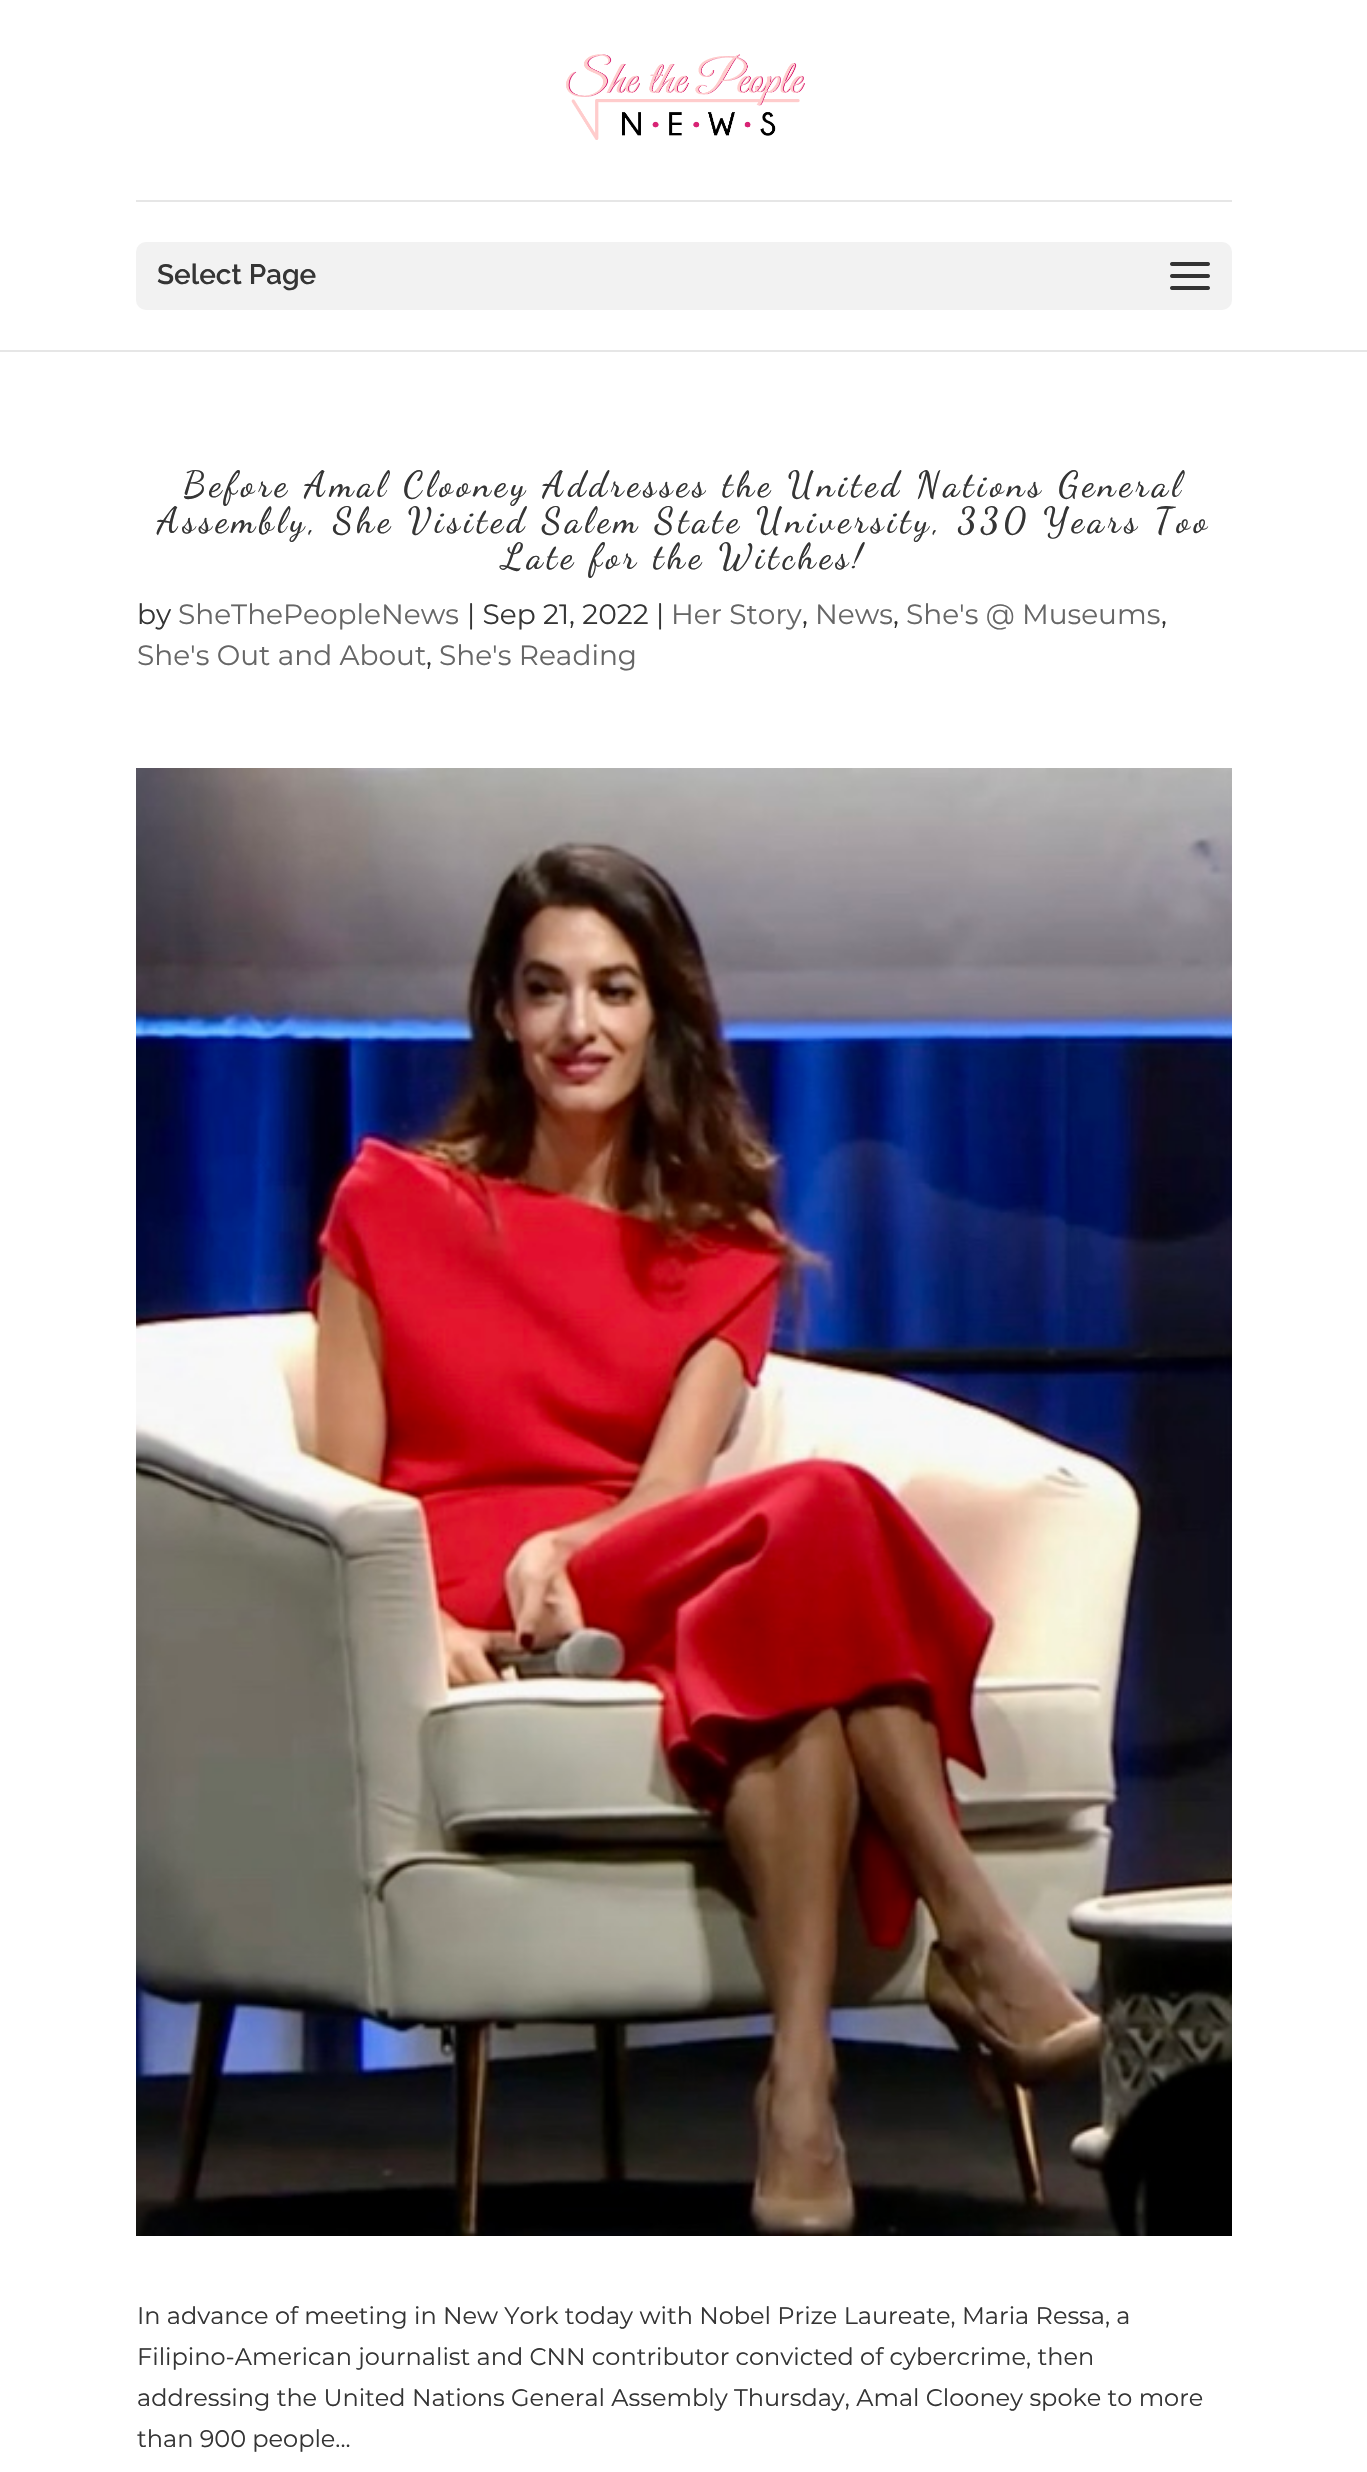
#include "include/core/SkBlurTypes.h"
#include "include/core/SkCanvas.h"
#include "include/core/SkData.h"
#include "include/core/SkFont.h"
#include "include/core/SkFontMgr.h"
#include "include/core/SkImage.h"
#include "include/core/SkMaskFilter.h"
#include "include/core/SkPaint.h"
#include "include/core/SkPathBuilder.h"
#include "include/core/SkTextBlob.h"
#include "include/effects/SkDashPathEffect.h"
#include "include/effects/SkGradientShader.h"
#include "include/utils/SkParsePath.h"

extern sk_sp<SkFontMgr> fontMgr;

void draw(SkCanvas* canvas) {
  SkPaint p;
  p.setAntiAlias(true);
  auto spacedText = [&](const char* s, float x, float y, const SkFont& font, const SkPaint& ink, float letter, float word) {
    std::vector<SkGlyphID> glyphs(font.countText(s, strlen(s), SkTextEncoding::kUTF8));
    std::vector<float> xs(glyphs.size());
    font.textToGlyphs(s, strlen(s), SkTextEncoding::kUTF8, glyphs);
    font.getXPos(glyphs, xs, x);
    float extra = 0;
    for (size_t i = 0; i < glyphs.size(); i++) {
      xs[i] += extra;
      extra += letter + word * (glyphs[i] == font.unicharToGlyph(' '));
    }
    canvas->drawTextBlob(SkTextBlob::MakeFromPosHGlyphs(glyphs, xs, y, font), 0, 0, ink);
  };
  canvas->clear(SK_ColorWHITE);
  p.setColor(SkColorSetRGB(230, 230, 230));
  canvas->drawRect(SkRect::MakeLTRB(0, 350, 1367, 352), p);
  canvas->drawImageRect(SkImages::DeferredFromEncodedData(SkData::MakeFromFileName("images/1.png")), SkRect::MakeLTRB(566, 54, 805, 140), SkSamplingOptions());
  canvas->drawRect(SkRect::MakeLTRB(136, 200, 1232, 202), p);
  p.setColor(SkColorSetRGB(242, 242, 242));
  canvas->drawRoundRect(SkRect::MakeLTRB(136, 242, 1232, 310), 10, 10, p);
  canvas->drawImageRect(SkImages::DeferredFromEncodedData(SkData::MakeFromFileName("images/2.png")), SkRect::MakeLTRB(1170, 262, 1210, 290), SkSamplingOptions());
  canvas->drawImageRect(SkImages::DeferredFromEncodedData(SkData::MakeFromFileName("images/3.png")), SkRect::MakeLTRB(136, 768, 1232, 2236), SkSamplingOptions());
  SkFont font1(fontMgr->matchFamilyStyle("Raleway", SkFontStyle(600, SkFontStyle::kNormal_Width, SkFontStyle::kUpright_Slant)), 28);
  font1.setSubpixel(true);
  p.setColor(SkColorSetRGB(53, 53, 53));
  canvas->drawString("Select Page", 157, 284, font1, p);
  SkFont font2(fontMgr->matchFamilyStyle("Dancing Script", SkFontStyle(500, SkFontStyle::kNormal_Width, SkFontStyle::kUpright_Slant)), 36);
  font2.setSubpixel(true);
  spacedText("Before Amal Clooney Addresses the United Nations General", 183, 496, font2, p, 4, 0);
  spacedText("Assembly, She Visited Salem State University, 330 Years Too", 157, 532, font2, p, 4, 0);
  spacedText("Late for the Witches!", 502, 568, font2, p, 4, 0);
  SkFont font3(fontMgr->matchFamilyStyle("Montserrat", SkFontStyle::Normal()), 28);
  font3.setSubpixel(true);
  canvas->drawString("by", 137, 624, font3, p);
  p.setColor(SkColorSetRGB(102, 102, 102));
  canvas->drawString("SheThePeopleNews", 178, 624, font3, p);
  p.setColor(SkColorSetRGB(53, 53, 53));
  canvas->drawString("| Sep 21, 2022 |", 467, 624, font3, p);
  p.setColor(SkColorSetRGB(102, 102, 102));
  canvas->drawString("Her Story", 671, 624, font3, p);
  p.setColor(SkColorSetRGB(53, 53, 53));
  canvas->drawString(",", 802, 624, font3, p);
  p.setColor(SkColorSetRGB(102, 102, 102));
  canvas->drawString("News", 815, 624, font3, p);
  p.setColor(SkColorSetRGB(53, 53, 53));
  canvas->drawString(",", 893, 624, font3, p);
  p.setColor(SkColorSetRGB(102, 102, 102));
  canvas->drawString("She's @ Museums", 906, 624, font3, p);
  p.setColor(SkColorSetRGB(53, 53, 53));
  canvas->drawString(",", 1161, 624, font3, p);
  p.setColor(SkColorSetRGB(102, 102, 102));
  canvas->drawString("She's Out and About", 137, 665, font3, p);
  p.setColor(SkColorSetRGB(53, 53, 53));
  canvas->drawString(",", 426, 665, font3, p);
  p.setColor(SkColorSetRGB(102, 102, 102));
  canvas->drawString("She's Reading", 439, 665, font3, p);
  SkFont font4(fontMgr->matchFamilyStyle("Montserrat", SkFontStyle::Normal()), 24);
  font4.setSubpixel(true);
  p.setColor(SkColorSetRGB(53, 53, 53));
  canvas->drawString("In advance of meeting in New York today with Nobel Prize Laureate, Maria Ressa, a", 137, 2324, font4, p);
  canvas->drawString("Filipino-American journalist and CNN contributor convicted of cybercrime, then", 137, 2365, font4, p);
  canvas->drawString("addressing the United Nations General Assembly Thursday, Amal Clooney spoke to more", 137, 2406, font4, p);
  canvas->drawString("than 900 people...", 137, 2447, font4, p);
}
